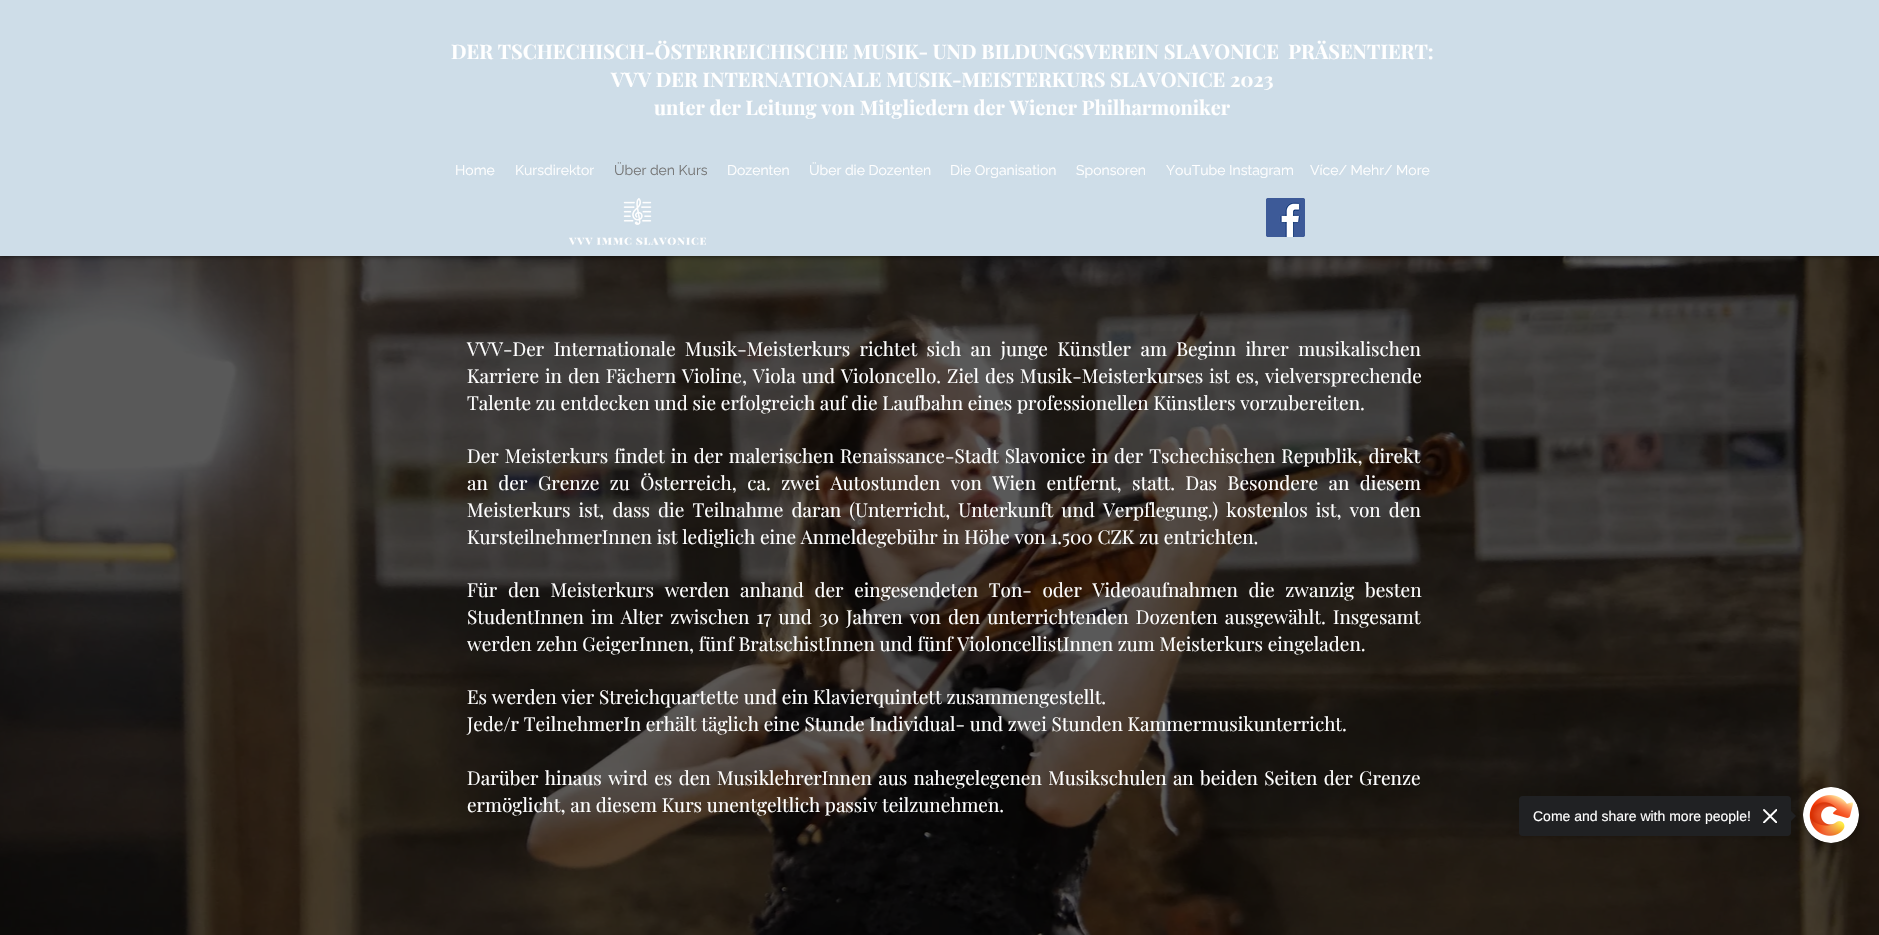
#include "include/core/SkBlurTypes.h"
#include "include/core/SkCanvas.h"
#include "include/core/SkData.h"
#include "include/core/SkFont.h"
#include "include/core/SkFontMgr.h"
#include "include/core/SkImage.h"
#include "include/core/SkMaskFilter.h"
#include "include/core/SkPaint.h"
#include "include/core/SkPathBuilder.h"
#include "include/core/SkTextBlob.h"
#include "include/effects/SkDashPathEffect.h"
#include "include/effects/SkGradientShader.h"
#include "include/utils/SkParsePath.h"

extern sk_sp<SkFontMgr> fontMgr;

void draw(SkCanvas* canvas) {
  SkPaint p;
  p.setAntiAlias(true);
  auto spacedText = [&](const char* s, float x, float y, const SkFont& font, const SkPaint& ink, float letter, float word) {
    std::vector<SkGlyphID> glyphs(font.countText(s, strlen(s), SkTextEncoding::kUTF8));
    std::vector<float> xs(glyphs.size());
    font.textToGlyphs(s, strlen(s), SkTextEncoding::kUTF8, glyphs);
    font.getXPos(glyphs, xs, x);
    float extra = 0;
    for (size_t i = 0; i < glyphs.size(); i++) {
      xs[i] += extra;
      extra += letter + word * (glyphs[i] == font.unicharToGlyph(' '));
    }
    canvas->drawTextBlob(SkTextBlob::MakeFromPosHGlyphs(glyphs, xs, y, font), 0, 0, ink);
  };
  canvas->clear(SK_ColorBLACK);
  canvas->drawImageRect(SkImages::DeferredFromEncodedData(SkData::MakeFromFileName("images/3.png")), SkRect::MakeLTRB(0, 256, 1879, 935), SkSamplingOptions());
  p.setColor(SkColorSetARGB(179, 0, 0, 0));
  p.setMaskFilter(SkMaskFilter::MakeBlur(kNormal_SkBlurStyle, 2.5f));
  canvas->drawRect(SkRect::MakeLTRB(0, 0, 1879, 256), p);
  p.setMaskFilter(nullptr);
  p.setColor(SkColorSetRGB(206, 221, 232));
  canvas->drawRect(SkRect::MakeLTRB(0, 0, 1879, 256), p);
  canvas->drawImageRect(SkImages::DeferredFromEncodedData(SkData::MakeFromFileName("images/1.png")), SkRect::MakeLTRB(569, 198, 706, 245), SkSamplingOptions());
  canvas->drawImageRect(SkImages::DeferredFromEncodedData(SkData::MakeFromFileName("images/2.png")), SkRect::MakeLTRB(1266, 198, 1305, 237), SkSamplingOptions());
  p.setColor(SkColorSetARGB(43, 0, 0, 0));
  p.setMaskFilter(SkMaskFilter::MakeBlur(kNormal_SkBlurStyle, 4.5f));
  canvas->drawRoundRect(SkRect::MakeLTRB(1804, 791, 1860, 847), 28, 28, p);
  p.setMaskFilter(nullptr);
  p.setColor(SkColorSetRGB(32, 33, 35));
  canvas->drawRoundRect(SkRect::MakeLTRB(1519, 796, 1791, 836), 4, 4, p);
  canvas->drawImageRect(SkImages::DeferredFromEncodedData(SkData::MakeFromFileName("images/4.png")), SkRect::MakeLTRB(1763, 809, 1777, 823), SkSamplingOptions());
  canvas->drawPath(SkPathBuilder().moveTo(1789, 823).lineTo(1789, 809).lineTo(1796, 816).close().detach(), p);
  canvas->drawImageRect(SkImages::DeferredFromEncodedData(SkData::MakeFromFileName("images/5.png")), SkRect::MakeLTRB(1803, 787, 1859, 843), SkSamplingOptions());
  SkFont font1(fontMgr->matchFamilyStyle("Playfair Display", SkFontStyle::Bold()), 20);
  font1.setSubpixel(true);
  p.setColor(SK_ColorWHITE);
  canvas->drawString("DER TSCHECHISCH-ÖSTERREICHISCHE MUSIK- UND BILDUNGSVEREIN SLAVONICE  PRÄSENTIERT:", 451, 59, font1, p);
  canvas->drawString("VVV DER INTERNATIONALE MUSIK-MEISTERKURS SLAVONICE", 611, 87, font1, p);
  canvas->drawString("2023", 1230, 87, font1, p);
  canvas->drawString("unter der Leitung von Mitgliedern der Wiener Philharmoniker", 654, 115, font1, p);
  SkFont font2(fontMgr->matchFamilyStyle("Raleway", SkFontStyle::Normal()), 14);
  font2.setSubpixel(true);
  canvas->drawString("Home", 455, 175, font2, p);
  canvas->drawString("Kursdirektor", 515, 175, font2, p);
  p.setColor(SkColorSetRGB(117, 117, 117));
  canvas->drawString("Über den Kurs", 614, 175, font2, p);
  p.setColor(SK_ColorWHITE);
  canvas->drawString("Dozenten", 727, 175, font2, p);
  canvas->drawString("Über die Dozenten", 809, 175, font2, p);
  canvas->drawString("Die Organisation", 950, 175, font2, p);
  canvas->drawString("Sponsoren", 1076, 175, font2, p);
  canvas->drawString("YouTube Instagram", 1166, 175, font2, p);
  canvas->drawString("Více/ Mehr/ More", 1310, 175, font2, p);
  SkFont font3(fontMgr->matchFamilyStyle("Playfair Display", SkFontStyle::Normal()), 19);
  font3.setSubpixel(true);
  spacedText("VVV-Der Internationale Musik-Meisterkurs richtet sich an junge Künstler am Beginn ihrer musikalischen", 467, 356, font3, p, 0, 4.75f);
  spacedText("Karriere in den Fächern Violine, Viola und Violoncello. Ziel des Musik-Meisterkurses ist es, vielversprechende", 467, 383, font3, p, 0, 1.25f);
  canvas->drawString("Talente zu entdecken und sie erfolgreich auf die Laufbahn eines professionellen Künstlers vorzubereiten.", 467, 410, font3, p);
  spacedText("Der Meisterkurs findet in der malerischen Renaissance-Stadt Slavonice in der Tschechischen Republik, direkt", 467, 463, font3, p, 0, 1.25f);
  spacedText("an der Grenze zu Österreich, ca. zwei Autostunden von Wien entfernt, statt. Das Besondere an diesem", 467, 490, font3, p, 0, 5.75f);
  spacedText("Meisterkurs ist, dass die Teilnahme daran (Unterricht, Unterkunft und Verpflegung.) kostenlos ist, von den", 467, 517, font3, p, 0, 3.4f);
  canvas->drawString("KursteilnehmerInnen ist lediglich eine Anmeldegebühr in Höhe von 1.500 CZK zu entrichten.", 467, 544, font3, p);
  spacedText("Für den Meisterkurs werden anhand der eingesendeten Ton- oder Videoaufnahmen die zwanzig besten", 467, 597, font3, p, 0, 5.9f);
  spacedText("StudentInnen im Alter zwischen 17 und 30 Jahren von den unterrichtenden Dozenten ausgewählt. Insgesamt", 467, 624, font3, p, 0, 2.5f);
  canvas->drawString("werden zehn GeigerInnen, fünf BratschistInnen und fünf VioloncellistInnen zum Meisterkurs eingeladen.", 467, 651, font3, p);
  canvas->drawString("Es werden vier Streichquartette und ein Klavierquintett zusammengestellt.", 467, 704, font3, p);
  canvas->drawString("Jede/r TeilnehmerIn erhält täglich eine Stunde Individual- und zwei Stunden Kammermusikunterricht.", 467, 731, font3, p);
  spacedText("Darüber hinaus wird es den MusiklehrerInnen aus nahegelegenen Musikschulen an beiden Seiten der Grenze", 467, 785, font3, p, 0, 1.6f);
  canvas->drawString("ermöglicht, an diesem Kurs unentgeltlich passiv teilzunehmen.", 467, 812, font3, p);
  SkFont font4(fontMgr->matchFamilyStyle("Liberation Sans", SkFontStyle::Normal()), 14);
  font4.setSubpixel(true);
  canvas->drawString("Come and share with more people!", 1533, 821, font4, p);
}
